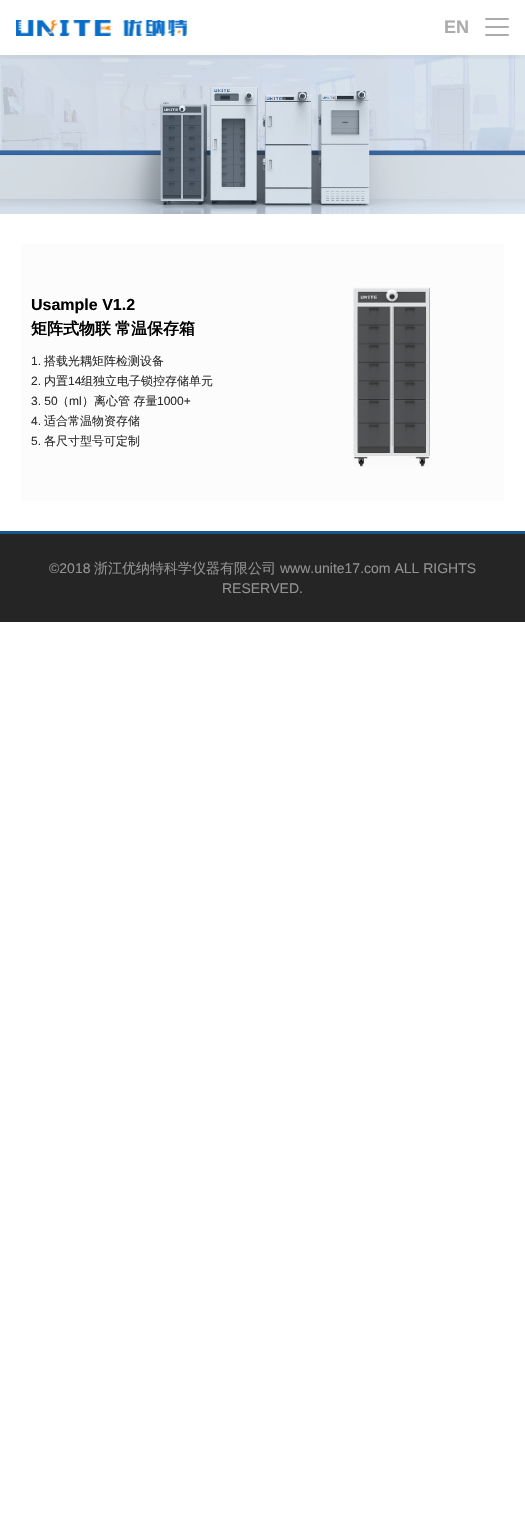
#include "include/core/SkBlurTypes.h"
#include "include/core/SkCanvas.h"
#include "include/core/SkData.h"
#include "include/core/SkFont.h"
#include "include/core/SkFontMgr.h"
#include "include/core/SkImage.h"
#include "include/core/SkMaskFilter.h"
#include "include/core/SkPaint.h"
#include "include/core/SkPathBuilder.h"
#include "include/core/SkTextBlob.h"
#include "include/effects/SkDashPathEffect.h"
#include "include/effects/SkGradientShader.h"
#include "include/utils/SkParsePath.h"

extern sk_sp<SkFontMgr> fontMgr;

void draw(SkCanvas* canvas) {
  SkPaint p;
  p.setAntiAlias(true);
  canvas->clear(SK_ColorWHITE);
  canvas->drawImageRect(SkImages::DeferredFromEncodedData(SkData::MakeFromFileName("images/2.png")), SkRect::MakeLTRB(0, 55, 525, 214), SkSamplingOptions());
  canvas->save();
  canvas->clipRect(SkRect::MakeLTRB(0, 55, 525, 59));
  p.setColor(SkColorSetARGB(26, 0, 0, 0));
  p.setMaskFilter(SkMaskFilter::MakeBlur(kNormal_SkBlurStyle, 5));
  canvas->drawRect(SkRect::MakeLTRB(0, 0, 525, 55), p);
  p.setMaskFilter(nullptr);
  canvas->restore();
  canvas->drawImageRect(SkImages::DeferredFromEncodedData(SkData::MakeFromFileName("images/1.png")), SkRect::MakeLTRB(16, 20, 187, 36), SkSamplingOptions());
  p.setColor(SkColorSetRGB(171, 171, 171));
  canvas->drawRoundRect(SkRect::MakeLTRB(485, 18, 509, 20), 1, 1, p);
  canvas->drawRoundRect(SkRect::MakeLTRB(485, 26, 509, 28), 1, 1, p);
  canvas->drawRoundRect(SkRect::MakeLTRB(485, 34, 509, 36), 1, 1, p);
  p.setColor(SkColorSetRGB(252, 252, 252));
  canvas->drawRect(SkRect::MakeLTRB(21, 244, 504, 501), p);
  canvas->drawImageRect(SkImages::DeferredFromEncodedData(SkData::MakeFromFileName("images/3.png")), SkRect::MakeLTRB(353, 287, 430, 467), SkSamplingOptions());
  p.setColor(SkColorSetRGB(22, 85, 144));
  canvas->drawRect(SkRect::MakeLTRB(0, 531, 525, 534), p);
  p.setColor(SkColorSetRGB(37, 37, 37));
  canvas->drawRect(SkRect::MakeLTRB(0, 534, 525, 622), p);
  SkFont font1(fontMgr->matchFamilyStyle("Liberation Sans", SkFontStyle::Bold()), 18);
  font1.setSubpixel(true);
  p.setColor(SkColorSetRGB(171, 171, 171));
  canvas->drawString("EN", 444, 33, font1, p);
  SkFont font2(fontMgr->matchFamilyStyle("Liberation Sans", SkFontStyle::Bold()), 16);
  font2.setSubpixel(true);
  p.setColor(SK_ColorBLACK);
  canvas->drawString("Usample V1.2", 31, 310, font2, p);
  SkFont font3(fontMgr->matchFamilyStyle("WenQuanYi Zen Hei", SkFontStyle::Bold()), 16);
  font3.setSubpixel(true);
  canvas->drawString("矩阵式物联", 31, 334, font3, p);
  canvas->drawString("常温保存箱", 115, 334, font3, p);
  SkFont font4(fontMgr->matchFamilyStyle("Liberation Sans", SkFontStyle::Normal()), 12);
  font4.setSubpixel(true);
  p.setColor(SkColorSetRGB(45, 45, 45));
  canvas->drawString("1.", 31, 365, font4, p);
  SkFont font5(fontMgr->matchFamilyStyle("WenQuanYi Zen Hei", SkFontStyle(500, SkFontStyle::kNormal_Width, SkFontStyle::kUpright_Slant)), 12);
  font5.setSubpixel(true);
  canvas->drawString("搭载光耦矩阵检测设备", 44, 365, font5, p);
  canvas->drawString("2.", 31, 385, font4, p);
  canvas->drawString("内置", 44, 385, font5, p);
  canvas->drawString("14", 68, 385, font4, p);
  canvas->drawString("组独立电子锁控存储单元", 81, 385, font5, p);
  canvas->drawString("3. 50", 31, 405, font4, p);
  canvas->drawString("（", 57, 405, font5, p);
  canvas->drawString("ml", 69, 405, font4, p);
  canvas->drawString("）离心管 存量", 82, 405, font5, p);
  canvas->drawString("1000+", 157, 405, font4, p);
  canvas->drawString("4.", 31, 425, font4, p);
  canvas->drawString("适合常温物资存储", 44, 425, font5, p);
  canvas->drawString("5.", 31, 445, font4, p);
  canvas->drawString("各尺寸型号可定制", 44, 445, font5, p);
  SkFont font6(fontMgr->matchFamilyStyle("Liberation Sans", SkFontStyle::Normal()), 14);
  font6.setSubpixel(true);
  p.setColor(SkColorSetRGB(146, 146, 146));
  canvas->drawString("©2018", 49, 573, font6, p);
  SkFont font7(fontMgr->matchFamilyStyle("WenQuanYi Zen Hei", SkFontStyle(500, SkFontStyle::kNormal_Width, SkFontStyle::kUpright_Slant)), 14);
  font7.setSubpixel(true);
  canvas->drawString("浙江优纳特科学仪器有限公司", 94, 573, font7, p);
  canvas->drawString("www.unite17.com ALL RIGHTS", 280, 573, font6, p);
  canvas->drawString("RESERVED.", 222, 593, font6, p);
}
